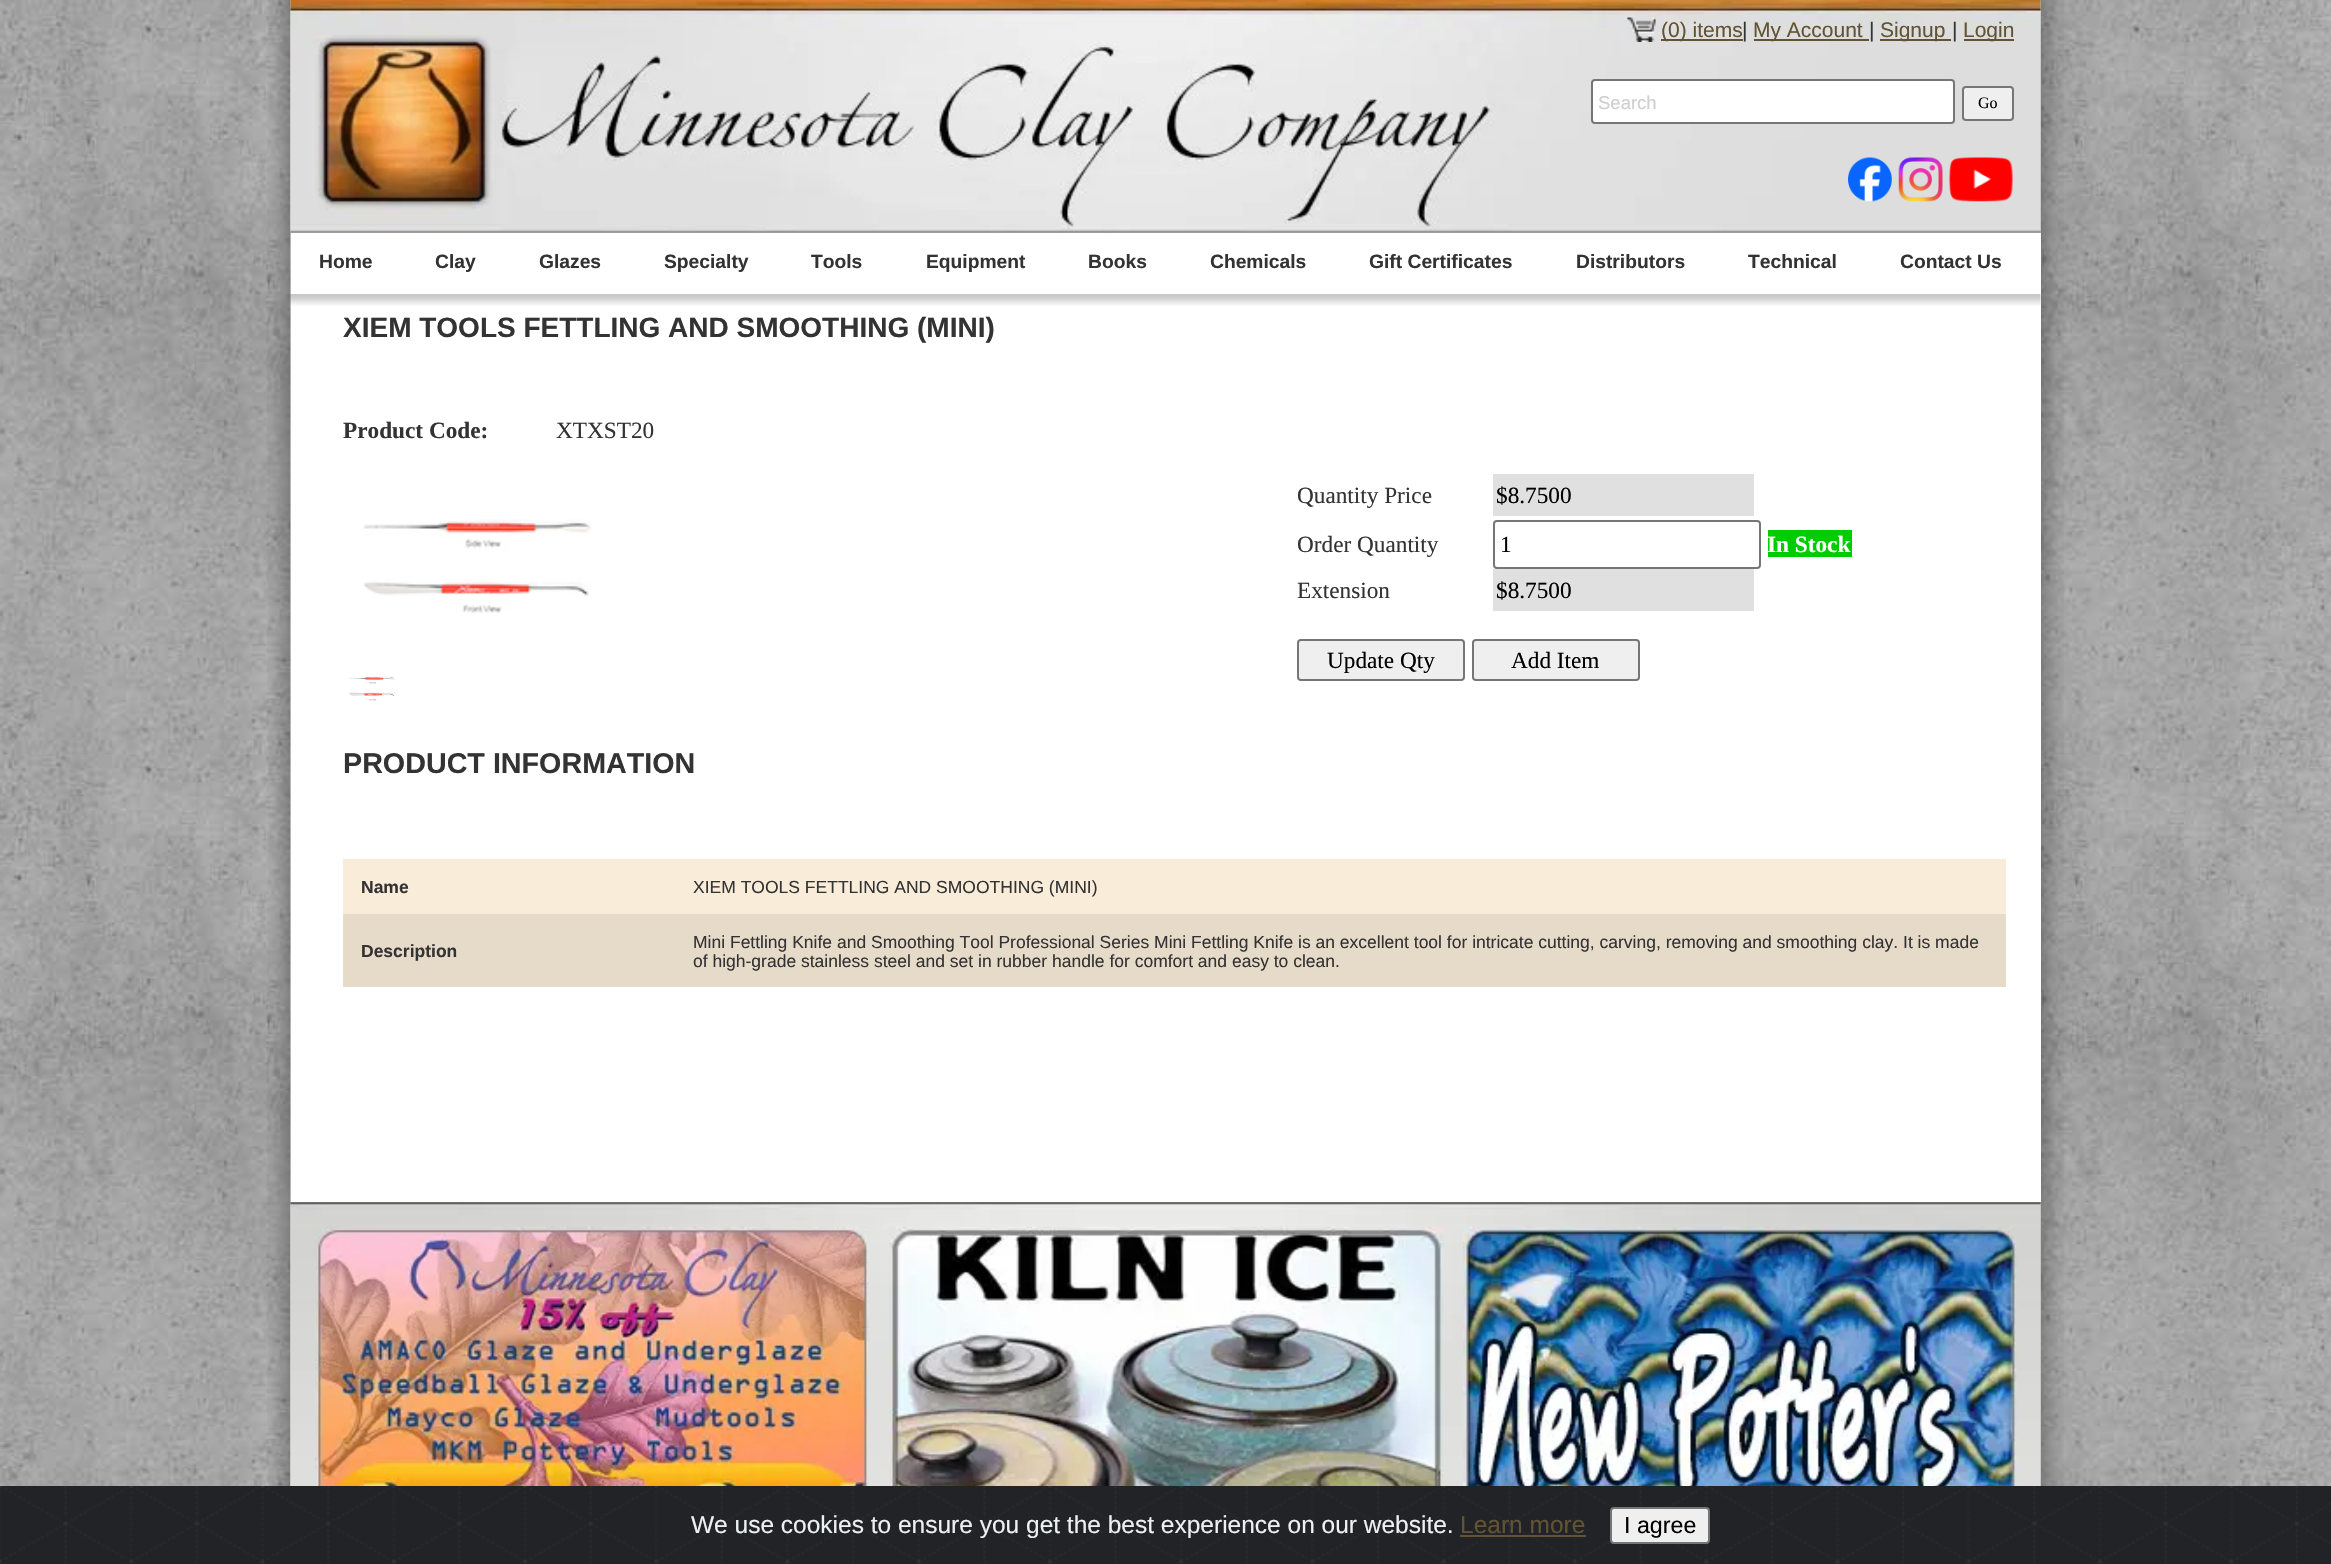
#include "include/core/SkBlurTypes.h"
#include "include/core/SkCanvas.h"
#include "include/core/SkData.h"
#include "include/core/SkFont.h"
#include "include/core/SkFontMgr.h"
#include "include/core/SkImage.h"
#include "include/core/SkMaskFilter.h"
#include "include/core/SkPaint.h"
#include "include/core/SkPathBuilder.h"
#include "include/core/SkTextBlob.h"
#include "include/effects/SkDashPathEffect.h"
#include "include/effects/SkGradientShader.h"
#include "include/utils/SkParsePath.h"

extern sk_sp<SkFontMgr> fontMgr;

void draw(SkCanvas* canvas) {
  SkPaint p;
  p.setAntiAlias(true);
  canvas->clear(SK_ColorWHITE);
  canvas->drawImageRect(SkImages::DeferredFromEncodedData(SkData::MakeFromFileName("images/1.png")), SkRect::MakeLTRB(0, 0, 2331, 1486), SkSamplingOptions());
  canvas->drawImageRect(SkImages::DeferredFromEncodedData(SkData::MakeFromFileName("images/2.png")), SkRect::MakeLTRB(267, 0, 2064, 1486), SkSamplingOptions());
  canvas->drawImageRect(SkImages::DeferredFromEncodedData(SkData::MakeFromFileName("images/3.png")), SkRect::MakeLTRB(290, 0, 2041, 233), SkSamplingOptions());
  canvas->drawImageRect(SkImages::DeferredFromEncodedData(SkData::MakeFromFileName("images/4.png")), SkRect::MakeLTRB(1627, 17, 1656, 42), SkSamplingOptions());
  p.setColor(SkColorSetRGB(97, 83, 51));
  canvas->drawRect(SkRect::MakeLTRB(1661, 39, 1743, 41), p);
  canvas->drawRect(SkRect::MakeLTRB(1754, 39, 1869, 41), p);
  canvas->drawRect(SkRect::MakeLTRB(1880, 39, 1951, 41), p);
  canvas->drawRect(SkRect::MakeLTRB(1964, 39, 2014, 41), p);
  p.setColor(SK_ColorWHITE);
  canvas->drawRoundRect(SkRect::MakeLTRB(1592, 80, 1954, 123), 3, 3, p);
  p.setStyle(SkPaint::kStroke_Style);
  p.setStrokeWidth(2);
  p.setColor(SkColorSetRGB(118, 118, 118));
  canvas->drawRoundRect(SkRect::MakeLTRB(1592, 80, 1954, 123), 3, 3, p);
  p.setStyle(SkPaint::kFill_Style);
  p.setColor(SkColorSetRGB(239, 239, 239));
  canvas->drawRoundRect(SkRect::MakeLTRB(1963, 87, 2013, 120), 3, 3, p);
  p.setStyle(SkPaint::kStroke_Style);
  p.setColor(SkColorSetRGB(118, 118, 118));
  canvas->drawRoundRect(SkRect::MakeLTRB(1963, 87, 2013, 120), 3, 3, p);
  canvas->drawImageRect(SkImages::DeferredFromEncodedData(SkData::MakeFromFileName("images/5.png")), SkRect::MakeLTRB(1848, 157, 1892, 202), SkSamplingOptions());
  canvas->drawImageRect(SkImages::DeferredFromEncodedData(SkData::MakeFromFileName("images/6.png")), SkRect::MakeLTRB(1898, 157, 1943, 202), SkSamplingOptions());
  canvas->drawImageRect(SkImages::DeferredFromEncodedData(SkData::MakeFromFileName("images/7.png")), SkRect::MakeLTRB(1949, 157, 2013, 202), SkSamplingOptions());
  p.setStyle(SkPaint::kFill_Style);
  p.setColor(SK_ColorWHITE);
  canvas->drawRect(SkRect::MakeLTRB(291, 233, 2041, 1202), p);
  canvas->drawImageRect(SkImages::DeferredFromEncodedData(SkData::MakeFromFileName("images/8.png")), SkRect::MakeLTRB(290, 294, 2041, 306), SkSamplingOptions());
  canvas->drawImageRect(SkImages::DeferredFromEncodedData(SkData::MakeFromFileName("images/9.png")), SkRect::MakeLTRB(363, 519, 592, 613), SkSamplingOptions());
  canvas->drawImageRect(SkImages::DeferredFromEncodedData(SkData::MakeFromFileName("images/10.png")), SkRect::MakeLTRB(349, 676, 395, 701), SkSamplingOptions());
  p.setColor(SkColorSetRGB(224, 224, 224));
  canvas->drawRect(SkRect::MakeLTRB(1493, 474, 1754, 516), p);
  p.setStyle(SkPaint::kStroke_Style);
  p.setColor(SkColorSetRGB(118, 118, 118));
  canvas->drawRoundRect(SkRect::MakeLTRB(1494, 521, 1760, 568), 3, 3, p);
  p.setStyle(SkPaint::kFill_Style);
  p.setColor(SkColorSetRGB(0, 204, 0));
  canvas->drawRect(SkRect::MakeLTRB(1768, 530, 1852, 557), p);
  p.setColor(SkColorSetRGB(224, 224, 224));
  canvas->drawRect(SkRect::MakeLTRB(1493, 569, 1754, 611), p);
  p.setColor(SkColorSetRGB(239, 239, 239));
  canvas->drawRoundRect(SkRect::MakeLTRB(1298, 640, 1464, 680), 3, 3, p);
  p.setStyle(SkPaint::kStroke_Style);
  p.setColor(SkColorSetRGB(118, 118, 118));
  canvas->drawRoundRect(SkRect::MakeLTRB(1298, 640, 1464, 680), 3, 3, p);
  p.setStyle(SkPaint::kFill_Style);
  p.setColor(SkColorSetRGB(239, 239, 239));
  canvas->drawRoundRect(SkRect::MakeLTRB(1473, 640, 1639, 680), 3, 3, p);
  p.setStyle(SkPaint::kStroke_Style);
  p.setColor(SkColorSetRGB(118, 118, 118));
  canvas->drawRoundRect(SkRect::MakeLTRB(1473, 640, 1639, 680), 3, 3, p);
  p.setStyle(SkPaint::kFill_Style);
  p.setColor(SkColorSetRGB(249, 236, 217));
  canvas->drawRect(SkRect::MakeLTRB(343, 859, 2006, 914), p);
  p.setColor(SkColorSetRGB(230, 218, 201));
  canvas->drawRect(SkRect::MakeLTRB(343, 914, 2006, 987), p);
  canvas->drawImageRect(SkImages::DeferredFromEncodedData(SkData::MakeFromFileName("images/11.png")), SkRect::MakeLTRB(290, 1202, 2041, 1486), SkSamplingOptions());
  canvas->drawImageRect(SkImages::DeferredFromEncodedData(SkData::MakeFromFileName("images/12.png")), SkRect::MakeLTRB(315, 1226, 870, 1486), SkSamplingOptions());
  canvas->drawImageRect(SkImages::DeferredFromEncodedData(SkData::MakeFromFileName("images/13.png")), SkRect::MakeLTRB(889, 1226, 1444, 1486), SkSamplingOptions());
  canvas->drawImageRect(SkImages::DeferredFromEncodedData(SkData::MakeFromFileName("images/14.png")), SkRect::MakeLTRB(1463, 1226, 2018, 1486), SkSamplingOptions());
  canvas->drawImageRect(SkImages::DeferredFromEncodedData(SkData::MakeFromFileName("images/15.png")), SkRect::MakeLTRB(0, 1486, 2331, 1564), SkSamplingOptions());
  p.setColor(SkColorSetRGB(97, 83, 51));
  canvas->drawRect(SkRect::MakeLTRB(1460, 1535, 1586, 1537), p);
  p.setColor(SkColorSetRGB(239, 239, 239));
  canvas->drawRoundRect(SkRect::MakeLTRB(1611, 1508, 1709, 1543), 3, 3, p);
  p.setStyle(SkPaint::kStroke_Style);
  p.setColor(SkColorSetRGB(118, 118, 118));
  canvas->drawRoundRect(SkRect::MakeLTRB(1611, 1508, 1709, 1543), 3, 3, p);
  SkFont font1(fontMgr->matchFamilyStyle("Liberation Sans", SkFontStyle::Normal()), 21);
  font1.setSubpixel(true);
  p.setStyle(SkPaint::kFill_Style);
  p.setColor(SkColorSetRGB(97, 83, 51));
  canvas->drawString("(0) items", 1661, 37, font1, p);
  p.setColor(SkColorSetRGB(51, 51, 51));
  canvas->drawString("|", 1742, 37, font1, p);
  p.setColor(SkColorSetRGB(97, 83, 51));
  canvas->drawString("My Account", 1753, 37, font1, p);
  p.setColor(SkColorSetRGB(51, 51, 51));
  canvas->drawString("|", 1869, 37, font1, p);
  p.setColor(SkColorSetRGB(97, 83, 51));
  canvas->drawString("Signup", 1880, 37, font1, p);
  p.setColor(SkColorSetRGB(51, 51, 51));
  canvas->drawString("|", 1952, 37, font1, p);
  p.setColor(SkColorSetRGB(97, 83, 51));
  canvas->drawString("Login", 1963, 37, font1, p);
  SkFont font2(fontMgr->matchFamilyStyle("Liberation Sans", SkFontStyle::Normal()), 18.5f);
  font2.setSubpixel(true);
  p.setColor(SkColorSetRGB(207, 207, 207));
  canvas->drawString("Search", 1598, 109, font2, p);
  SkFont font3(fontMgr->matchFamilyStyle("Liberation Serif", SkFontStyle::Normal()), 16);
  font3.setSubpixel(true);
  p.setColor(SK_ColorBLACK);
  canvas->drawString("Go", 1978, 108, font3, p);
  SkFont font4(fontMgr->matchFamilyStyle("Liberation Sans", SkFontStyle::Bold()), 19.25f);
  font4.setSubpixel(true);
  p.setColor(SkColorSetRGB(51, 51, 51));
  canvas->drawString("Home", 319, 268, font4, p);
  canvas->drawString("Clay", 435, 268, font4, p);
  canvas->drawString("Glazes", 539, 268, font4, p);
  canvas->drawString("Specialty", 664, 268, font4, p);
  canvas->drawString("Tools", 811, 268, font4, p);
  canvas->drawString("Equipment", 926, 268, font4, p);
  canvas->drawString("Books", 1088, 268, font4, p);
  canvas->drawString("Chemicals", 1210, 268, font4, p);
  canvas->drawString("Gift Certificates", 1369, 268, font4, p);
  canvas->drawString("Distributors", 1576, 268, font4, p);
  canvas->drawString("Technical", 1748, 268, font4, p);
  canvas->drawString("Contact Us", 1900, 268, font4, p);
  SkFont font5(fontMgr->matchFamilyStyle("Liberation Sans", SkFontStyle::Bold()), 28);
  font5.setSubpixel(true);
  canvas->drawString("XIEM TOOLS FETTLING AND SMOOTHING (MINI)", 343, 337, font5, p);
  SkFont font6(fontMgr->matchFamilyStyle("Liberation Serif", SkFontStyle::Bold()), 23.25f);
  font6.setSubpixel(true);
  canvas->drawString("Product Code:", 343, 438, font6, p);
  SkFont font7(fontMgr->matchFamilyStyle("Liberation Serif", SkFontStyle::Normal()), 23.25f);
  font7.setSubpixel(true);
  canvas->drawString("XTXST20", 556, 438, font7, p);
  SkFont font8(fontMgr->matchFamilyStyle("Liberation Sans", SkFontStyle::Bold()), 28.7f);
  font8.setSubpixel(true);
  canvas->drawString("PRODUCT INFORMATION", 343, 773, font8, p);
  canvas->drawString("Quantity Price", 1297, 503, font7, p);
  p.setColor(SK_ColorBLACK);
  canvas->drawString("$8.7500", 1496, 503, font7, p);
  p.setColor(SkColorSetRGB(51, 51, 51));
  canvas->drawString("Order Quantity", 1297, 552, font7, p);
  p.setColor(SK_ColorBLACK);
  canvas->drawString("1", 1500, 552, font7, p);
  p.setColor(SK_ColorWHITE);
  canvas->drawString("In Stock", 1767, 552, font6, p);
  p.setColor(SkColorSetRGB(51, 51, 51));
  canvas->drawString("Extension", 1297, 598, font7, p);
  p.setColor(SK_ColorBLACK);
  canvas->drawString("$8.7500", 1496, 598, font7, p);
  canvas->drawString("Update Qty", 1327, 668, font7, p);
  canvas->drawString("Add Item", 1511, 668, font7, p);
  SkFont font9(fontMgr->matchFamilyStyle("Liberation Sans", SkFontStyle::Bold()), 17.5f);
  font9.setSubpixel(true);
  p.setColor(SkColorSetRGB(51, 51, 51));
  canvas->drawString("Name", 361, 893, font9, p);
  SkFont font10(fontMgr->matchFamilyStyle("Liberation Sans", SkFontStyle::Normal()), 17.5f);
  font10.setSubpixel(true);
  canvas->drawString("XIEM TOOLS FETTLING AND SMOOTHING (MINI)", 693, 893, font10, p);
  canvas->drawString("Description", 361, 957, font9, p);
  canvas->drawString("Mini Fettling Knife and Smoothing Tool Professional Series Mini Fettling Knife is an excellent tool for intricate cutting, carving, removing and smoothing clay. It is made", 693, 948, font10, p);
  canvas->drawString("of high-grade stainless steel and set in rubber handle for comfort and easy to clean.", 693, 967, font10, p);
  SkFont font11(fontMgr->matchFamilyStyle("Liberation Sans", SkFontStyle::Normal()), 24.5f);
  font11.setSubpixel(true);
  p.setColor(SkColorSetRGB(236, 240, 241));
  canvas->drawString("We use cookies to ensure you get the best experience on our website.", 691, 1533, font11, p);
  p.setColor(SkColorSetRGB(97, 83, 51));
  canvas->drawString("Learn more", 1460, 1533, font11, p);
  SkFont font12(fontMgr->matchFamilyStyle("Liberation Sans", SkFontStyle::Normal()), 23.25f);
  font12.setSubpixel(true);
  p.setColor(SK_ColorBLACK);
  canvas->drawString("I agree", 1624, 1533, font12, p);
}
